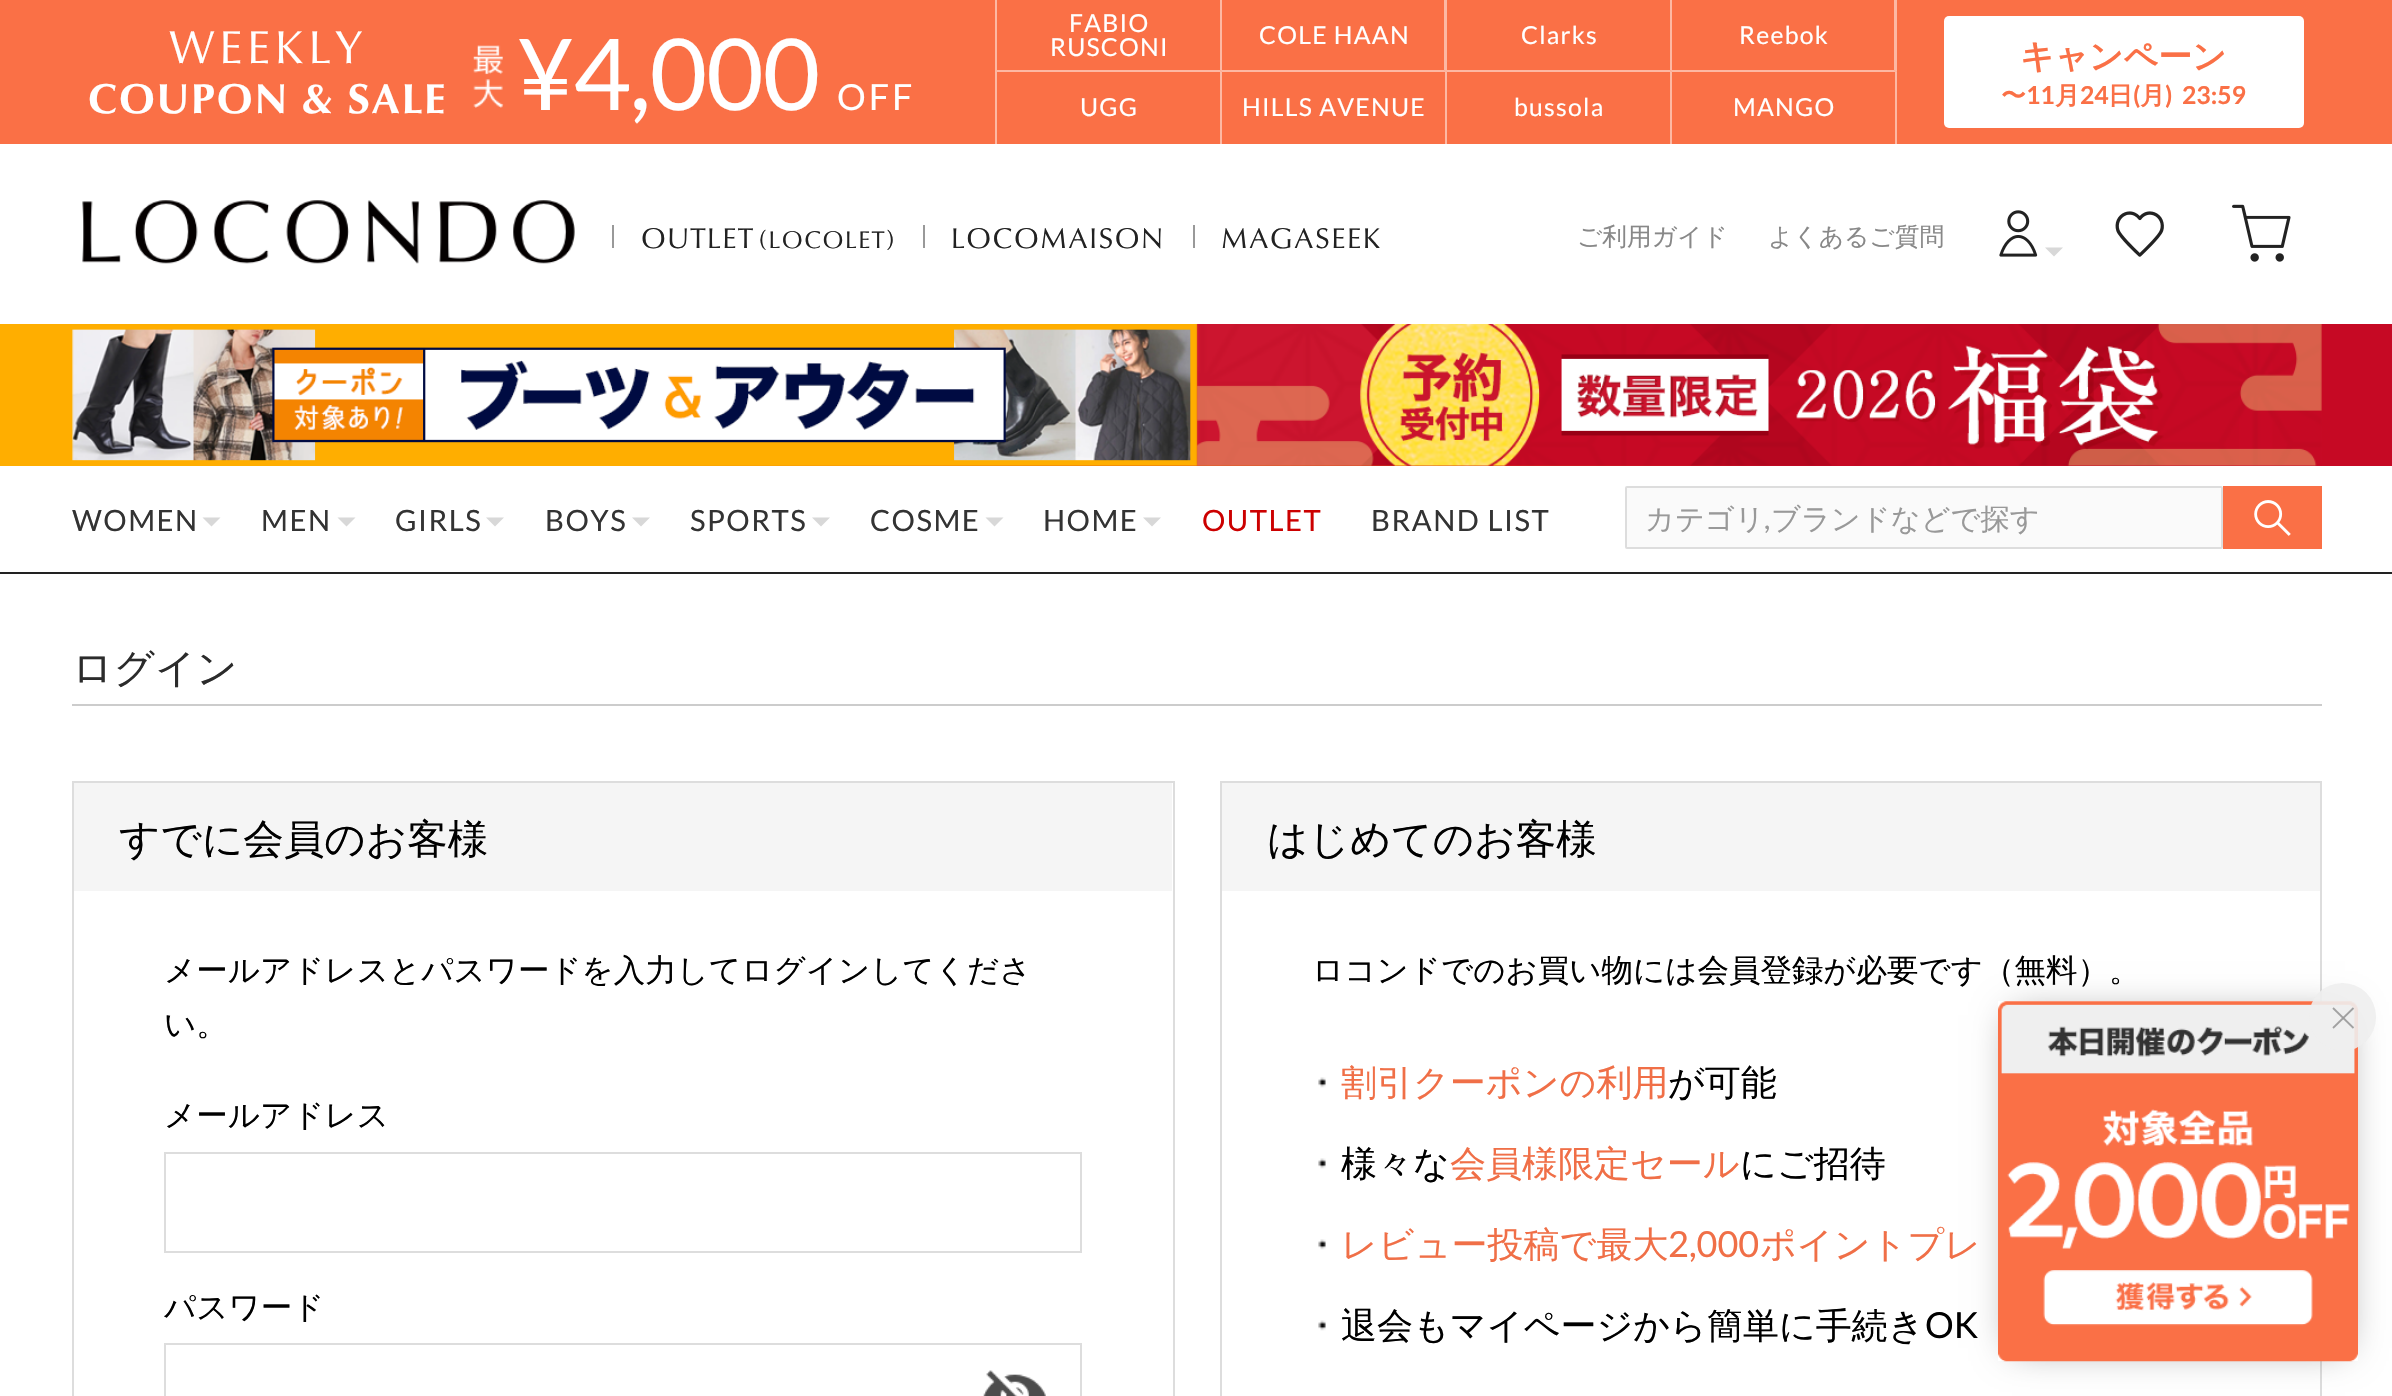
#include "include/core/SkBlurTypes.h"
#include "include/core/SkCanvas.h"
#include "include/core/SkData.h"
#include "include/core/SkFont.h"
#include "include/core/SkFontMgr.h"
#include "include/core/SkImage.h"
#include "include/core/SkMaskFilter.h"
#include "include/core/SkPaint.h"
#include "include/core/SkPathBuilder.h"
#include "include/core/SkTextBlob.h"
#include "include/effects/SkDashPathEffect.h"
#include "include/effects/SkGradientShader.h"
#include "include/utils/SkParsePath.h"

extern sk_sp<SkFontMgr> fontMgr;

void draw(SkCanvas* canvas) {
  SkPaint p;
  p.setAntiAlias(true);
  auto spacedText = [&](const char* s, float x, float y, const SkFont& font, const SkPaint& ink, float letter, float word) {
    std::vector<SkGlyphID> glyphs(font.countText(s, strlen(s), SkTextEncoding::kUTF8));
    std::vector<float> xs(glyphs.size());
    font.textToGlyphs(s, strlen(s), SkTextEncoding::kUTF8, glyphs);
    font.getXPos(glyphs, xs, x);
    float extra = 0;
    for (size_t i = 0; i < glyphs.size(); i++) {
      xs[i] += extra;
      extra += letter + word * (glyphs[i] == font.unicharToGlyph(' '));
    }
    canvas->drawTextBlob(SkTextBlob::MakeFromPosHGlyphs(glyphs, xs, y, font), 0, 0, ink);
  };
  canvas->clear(SK_ColorWHITE);
  p.setColor(SkColorSetRGB(250, 112, 70));
  canvas->drawRect(SkRect::MakeLTRB(0, 0, 2392, 144), p);
  canvas->drawImageRect(SkImages::DeferredFromEncodedData(SkData::MakeFromFileName("images/1.png")), SkRect::MakeLTRB(473, 45, 504, 108), SkSamplingOptions());
  p.setColor(SkColorSetRGB(253, 184, 163));
  canvas->drawRect(SkRect::MakeLTRB(995, 0, 997, 144), p);
  canvas->drawPath(SkPathBuilder().moveTo(1222, 0).lineTo(1222, 72).lineTo(1220, 70).lineTo(1220, 0).close().detach(), p);
  p.setColor(SkColorSetARGB(128, 255, 255, 255));
  canvas->drawPath(SkPathBuilder().moveTo(1222, 72).lineTo(997, 72).lineTo(997, 70).lineTo(1220, 70).close().detach(), p);
  p.setColor(SkColorSetRGB(253, 184, 163));
  canvas->drawPath(SkPathBuilder().moveTo(1447, 0).lineTo(1447, 72).lineTo(1444, 70).lineTo(1444, 0).close().detach(), p);
  p.setColor(SkColorSetARGB(128, 255, 255, 255));
  canvas->drawPath(SkPathBuilder().moveTo(1447, 72).lineTo(1222, 72).lineTo(1222, 70).lineTo(1444, 70).close().detach(), p);
  p.setColor(SkColorSetRGB(253, 184, 163));
  canvas->drawPath(SkPathBuilder().moveTo(1672, 0).lineTo(1672, 72).lineTo(1670, 70).lineTo(1670, 0).close().detach(), p);
  p.setColor(SkColorSetARGB(128, 255, 255, 255));
  canvas->drawPath(SkPathBuilder().moveTo(1672, 72).lineTo(1447, 72).lineTo(1447, 70).lineTo(1670, 70).close().detach(), p);
  p.setColor(SkColorSetRGB(253, 184, 163));
  canvas->drawPath(SkPathBuilder().moveTo(1897, 0).lineTo(1897, 72).lineTo(1894, 70).lineTo(1894, 0).close().detach(), p);
  p.setColor(SkColorSetARGB(128, 255, 255, 255));
  canvas->drawPath(SkPathBuilder().moveTo(1897, 72).lineTo(1672, 72).lineTo(1672, 70).lineTo(1894, 70).close().detach(), p);
  p.setColor(SkColorSetRGB(253, 184, 163));
  canvas->drawRect(SkRect::MakeLTRB(1220, 72, 1222, 144), p);
  canvas->drawRect(SkRect::MakeLTRB(1445, 72, 1447, 144), p);
  canvas->drawRect(SkRect::MakeLTRB(1670, 72, 1672, 144), p);
  canvas->drawRect(SkRect::MakeLTRB(1895, 72, 1897, 144), p);
  p.setColor(SK_ColorWHITE);
  canvas->drawRoundRect(SkRect::MakeLTRB(1944, 16, 2304, 128), 5, 5, p);
  p.setStyle(SkPaint::kStroke_Style);
  p.setStrokeWidth(2);
  p.setColor(SkColorSetRGB(221, 221, 221));
  canvas->drawRect(SkRect::MakeLTRB(1221, 782, 2321, 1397), p);
  canvas->save();
  canvas->clipPath(SkPathBuilder(SkPathFillType::kEvenOdd).moveTo(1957, 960).lineTo(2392, 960).lineTo(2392, 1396).lineTo(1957, 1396).close().moveTo(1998, 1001).lineTo(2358, 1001).lineTo(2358, 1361).lineTo(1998, 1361).close().detach(), true);
  p.setStyle(SkPaint::kFill_Style);
  p.setColor(SkColorSetARGB(102, 0, 0, 0));
  p.setMaskFilter(SkMaskFilter::MakeBlur(kNormal_SkBlurStyle, 18));
  canvas->drawRect(SkRect::MakeLTRB(2012, 1015, 2345, 1348), p);
  p.setMaskFilter(nullptr);
  canvas->restore();
  canvas->drawImageRect(SkImages::DeferredFromEncodedData(SkData::MakeFromFileName("images/2.png")), SkRect::MakeLTRB(1998, 1001, 2358, 1362), SkSamplingOptions());
  p.setColor(SkColorSetARGB(230, 238, 238, 238));
  canvas->drawRoundRect(SkRect::MakeLTRB(2309, 983, 2376, 1051), 33.5f, 33.5f, p);
  p.setStyle(SkPaint::kStroke_Style);
  p.setStrokeWidth(1.8f);
  p.setColor(SkColorSetRGB(162, 162, 162));
  canvas->drawPath(SkPathBuilder().moveTo(2353.5f, 1028).lineTo(2333, 1008).detach(), p);
  p.setColor(SkColorSetARGB(230, 153, 153, 153));
  canvas->drawPath(SkPathBuilder().moveTo(2353.5f, 1008).lineTo(2333, 1028).detach(), p);
  canvas->drawImageRect(SkImages::DeferredFromEncodedData(SkData::MakeFromFileName("images/3.png")), SkRect::MakeLTRB(82, 200, 575, 264), SkSamplingOptions());
  p.setStyle(SkPaint::kFill_Style);
  p.setColor(SkColorSetRGB(153, 153, 153));
  canvas->drawRect(SkRect::MakeLTRB(612, 225, 614, 248), p);
  canvas->drawRect(SkRect::MakeLTRB(923, 225, 925, 248), p);
  canvas->drawRect(SkRect::MakeLTRB(1193, 225, 1195, 248), p);
  canvas->drawImageRect(SkImages::DeferredFromEncodedData(SkData::MakeFromFileName("images/4.png")), SkRect::MakeLTRB(1999, 210, 2038, 257), SkSamplingOptions());
  p.setColor(SkColorSetRGB(216, 216, 216));
  canvas->drawPath(SkPathBuilder().moveTo(2045, 247.5f).lineTo(2063, 247.5f).lineTo(2054, 256.5f).close().detach(), p);
  canvas->drawImageRect(SkImages::DeferredFromEncodedData(SkData::MakeFromFileName("images/5.png")), SkRect::MakeLTRB(2115, 211, 2164, 257), SkSamplingOptions());
  canvas->drawImageRect(SkImages::DeferredFromEncodedData(SkData::MakeFromFileName("images/6.png")), SkRect::MakeLTRB(2232, 204, 2291, 262), SkSamplingOptions());
  {
    const SkColor colors[] = {SkColorSetRGB(255, 174, 0), SkColorSetRGB(255, 174, 0), SkColorSetRGB(198, 9, 36), SkColorSetRGB(198, 9, 36)};
    const float stops[] = {0, 0.25f, 0.75f, 1};
    const SkPoint ends[] = {{0, 395}, {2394, 395}};
    p.setShader(SkGradientShader::MakeLinear(ends, colors, stops, 4, SkTileMode::kClamp));
    p.setAlpha(255);
  }
  canvas->drawRect(SkRect::MakeLTRB(0, 324, 2392, 466), p);
  canvas->drawImageRect(SkImages::DeferredFromEncodedData(SkData::MakeFromFileName("images/7.png")), SkRect::MakeLTRB(72, 324, 2322, 466), SkSamplingOptions());
  p.setShader(nullptr);
  p.setColor(SkColorSetRGB(34, 34, 34));
  canvas->drawRect(SkRect::MakeLTRB(0, 572, 2392, 574), p);
  p.setColor(SkColorSetRGB(216, 216, 216));
  canvas->drawPath(SkPathBuilder().moveTo(202.5f, 517.5f).lineTo(220.5f, 517.5f).lineTo(211.5f, 526.5f).close().detach(), p);
  canvas->drawPath(SkPathBuilder().moveTo(337.5f, 517.5f).lineTo(355.5f, 517.5f).lineTo(346.5f, 526.5f).close().detach(), p);
  canvas->drawPath(SkPathBuilder().moveTo(486, 517.5f).lineTo(504, 517.5f).lineTo(495, 526.5f).close().detach(), p);
  canvas->drawPath(SkPathBuilder().moveTo(632, 517.5f).lineTo(650, 517.5f).lineTo(641, 526.5f).close().detach(), p);
  canvas->drawPath(SkPathBuilder().moveTo(812, 517.5f).lineTo(830, 517.5f).lineTo(821, 526.5f).close().detach(), p);
  canvas->drawPath(SkPathBuilder().moveTo(985.5f, 517.5f).lineTo(1003.5f, 517.5f).lineTo(994.5f, 526.5f).close().detach(), p);
  canvas->drawPath(SkPathBuilder().moveTo(1143, 517.5f).lineTo(1161, 517.5f).lineTo(1152, 526.5f).close().detach(), p);
  p.setColor(SkColorSetRGB(250, 250, 250));
  canvas->drawRoundRect(SkRect::MakeLTRB(1626, 487, 2222, 548), 1, 1, p);
  p.setStyle(SkPaint::kStroke_Style);
  p.setStrokeWidth(2);
  p.setColor(SkColorSetRGB(221, 221, 221));
  canvas->drawRoundRect(SkRect::MakeLTRB(1626, 487, 2222, 548), 1, 1, p);
  p.setStyle(SkPaint::kFill_Style);
  p.setColor(SkColorSetRGB(250, 112, 70));
  canvas->drawRect(SkRect::MakeLTRB(2223, 486, 2322, 549), p);
  canvas->drawImageRect(SkImages::DeferredFromEncodedData(SkData::MakeFromFileName("images/8.png")), SkRect::MakeLTRB(2254, 500, 2291, 536), SkSamplingOptions());
  p.setColor(SkColorSetRGB(204, 204, 204));
  canvas->drawRect(SkRect::MakeLTRB(72, 704, 2322, 706), p);
  p.setStyle(SkPaint::kStroke_Style);
  p.setColor(SkColorSetRGB(221, 221, 221));
  canvas->drawRect(SkRect::MakeLTRB(73, 782, 1174, 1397), p);
  p.setStyle(SkPaint::kFill_Style);
  p.setColor(SkColorSetRGB(245, 245, 245));
  canvas->drawRect(SkRect::MakeLTRB(74, 783, 1172, 891), p);
  p.setStyle(SkPaint::kStroke_Style);
  p.setColor(SkColorSetRGB(221, 221, 221));
  canvas->drawRect(SkRect::MakeLTRB(165, 1153, 1081, 1252), p);
  canvas->drawRect(SkRect::MakeLTRB(165, 1344, 1081, 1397), p);
  canvas->drawImageRect(SkImages::DeferredFromEncodedData(SkData::MakeFromFileName("images/9.png")), SkRect::MakeLTRB(983, 1370, 1046, 1396), SkSamplingOptions());
  p.setStyle(SkPaint::kFill_Style);
  p.setColor(SkColorSetRGB(245, 245, 245));
  canvas->drawRect(SkRect::MakeLTRB(1222, 783, 2320, 891), p);
  canvas->drawImageRect(SkImages::DeferredFromEncodedData(SkData::MakeFromFileName("images/10.png")), SkRect::MakeLTRB(1318, 1077, 1326, 1088), SkSamplingOptions());
  canvas->drawImageRect(SkImages::DeferredFromEncodedData(SkData::MakeFromFileName("images/11.png")), SkRect::MakeLTRB(1318, 1158, 1326, 1169), SkSamplingOptions());
  canvas->drawImageRect(SkImages::DeferredFromEncodedData(SkData::MakeFromFileName("images/10.png")), SkRect::MakeLTRB(1318, 1239, 1326, 1250), SkSamplingOptions());
  canvas->drawImageRect(SkImages::DeferredFromEncodedData(SkData::MakeFromFileName("images/10.png")), SkRect::MakeLTRB(1318, 1320, 1326, 1331), SkSamplingOptions());
  SkFont font1(fontMgr->matchFamilyStyle("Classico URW", SkFontStyle::Normal()), 47.25f);
  font1.setSubpixel(true);
  p.setColor(SK_ColorWHITE);
  spacedText("WEEKLY", 169, 63, font1, p, 4.75f, 0);
  SkFont font2(fontMgr->matchFamilyStyle("Classico URW", SkFontStyle::Bold()), 42.75f);
  font2.setSubpixel(true);
  spacedText("COUPON & SALE", 88, 113, font2, p, 2.1f, 0);
  SkFont font3(fontMgr->matchFamilyStyle("Lato", SkFontStyle::Normal()), 99);
  font3.setSubpixel(true);
  spacedText("¥4,000", 517, 110, font3, p, -1, 0);
  SkFont font4(fontMgr->matchFamilyStyle("Lato", SkFontStyle::Normal()), 36);
  font4.setSubpixel(true);
  spacedText("OFF", 837, 110, font4, p, 3, 0);
  SkFont font5(fontMgr->matchFamilyStyle("Lato", SkFontStyle::Normal()), 24.75f);
  font5.setSubpixel(true);
  spacedText("FABIO", 1069, 32, font5, p, 1.25f, 0);
  spacedText("RUSCONI", 1050, 56, font5, p, 1.25f, 0);
  spacedText("COLE HAAN", 1259, 44, font5, p, 1.25f, 0);
  spacedText("Clarks", 1521, 44, font5, p, 1.25f, 0);
  spacedText("Reebok", 1739, 44, font5, p, 1.25f, 0);
  spacedText("UGG", 1080, 116, font5, p, 1.25f, 0);
  spacedText("HILLS AVENUE", 1242, 116, font5, p, 1.25f, 0);
  spacedText("bussola", 1514, 116, font5, p, 1.25f, 0);
  spacedText("MANGO", 1733, 116, font5, p, 1.25f, 0);
  SkFont font6(fontMgr->matchFamilyStyle("WenQuanYi Zen Hei", SkFontStyle::Bold()), 33.75f);
  font6.setSubpixel(true);
  p.setColor(SkColorSetRGB(250, 112, 70));
  canvas->drawString("キャンペーン", 2020, 68, font6, p);
  SkFont font7(fontMgr->matchFamilyStyle("WenQuanYi Zen Hei", SkFontStyle::Bold()), 24.75f);
  font7.setSubpixel(true);
  canvas->drawString("月", 2055, 104, font7, p);
  SkFont font8(fontMgr->matchFamilyStyle("Lato", SkFontStyle::Bold()), 24.75f);
  font8.setSubpixel(true);
  canvas->drawString("24", 2080, 104, font8, p);
  canvas->drawString(")", 2165, 104, font8, p);
  canvas->drawString("〜", 2001, 104, font7, p);
  canvas->drawString("11", 2026, 104, font8, p);
  canvas->drawString("日 月", 2108, 104, font7, p);
  canvas->drawString("(", 2133, 104, font8, p);
  canvas->drawString("23:59", 2182, 104, font8, p);
  SkFont font9(fontMgr->matchFamilyStyle("Classico URW", SkFontStyle::Normal()), 29.25f);
  font9.setSubpixel(true);
  p.setColor(SkColorSetRGB(34, 34, 34));
  spacedText("OUTLET", 641, 248, font9, p, 1.5f, 0);
  SkFont font10(fontMgr->matchFamilyStyle("Classico URW", SkFontStyle::Normal()), 24.75f);
  font10.setSubpixel(true);
  spacedText("(LOCOLET)", 759, 248, font10, p, 1.5f, 0);
  spacedText("LOCOMAISON", 951, 248, font9, p, 1.5f, 0);
  spacedText("MAGASEEK", 1221, 248, font9, p, 1.5f, 0);
  SkFont font11(fontMgr->matchFamilyStyle("WenQuanYi Zen Hei", SkFontStyle(500, SkFontStyle::kNormal_Width, SkFontStyle::kUpright_Slant)), 24.75f);
  font11.setSubpixel(true);
  p.setColor(SkColorSetRGB(136, 136, 136));
  canvas->drawString("ご利用ガイド", 1577, 245, font11, p);
  canvas->drawString("よくあるご質問", 1768, 245, font11, p);
  SkFont font12(fontMgr->matchFamilyStyle("Lato", SkFontStyle::Normal()), 29.25f);
  font12.setSubpixel(true);
  p.setColor(SkColorSetRGB(51, 51, 51));
  spacedText("WOMEN", 72, 531, font12, p, 1.5f, 0);
  spacedText("MEN", 261, 531, font12, p, 1.5f, 0);
  spacedText("GIRLS", 395, 531, font12, p, 1.5f, 0);
  spacedText("BOYS", 545, 531, font12, p, 1.5f, 0);
  spacedText("SPORTS", 690, 531, font12, p, 1.5f, 0);
  spacedText("COSME", 870, 531, font12, p, 1.5f, 0);
  spacedText("HOME", 1043, 531, font12, p, 1.5f, 0);
  p.setColor(SkColorSetRGB(204, 0, 0));
  spacedText("OUTLET", 1202, 531, font12, p, 1.5f, 0);
  p.setColor(SkColorSetRGB(51, 51, 51));
  spacedText("BRAND LIST", 1371, 531, font12, p, 1.5f, 0);
  SkFont font13(fontMgr->matchFamilyStyle("WenQuanYi Zen Hei", SkFontStyle(500, SkFontStyle::kNormal_Width, SkFontStyle::kUpright_Slant)), 29.25f);
  font13.setSubpixel(true);
  p.setColor(SkColorSetRGB(153, 153, 153));
  canvas->drawString("カテゴリ", 1645, 529, font13, p);
  canvas->drawString(",", 1764, 529, font12, p);
  canvas->drawString("ブランドなどで探す", 1771, 529, font13, p);
  SkFont font14(fontMgr->matchFamilyStyle("WenQuanYi Zen Hei", SkFontStyle(500, SkFontStyle::kNormal_Width, SkFontStyle::kUpright_Slant)), 40.5f);
  font14.setSubpixel(true);
  p.setColor(SkColorSetRGB(43, 43, 43));
  canvas->drawString("ログイン", 72, 682, font14, p);
  p.setColor(SK_ColorBLACK);
  canvas->drawString("すでに会員のお客様", 119, 853, font14, p);
  SkFont font15(fontMgr->matchFamilyStyle("WenQuanYi Zen Hei", SkFontStyle(500, SkFontStyle::kNormal_Width, SkFontStyle::kUpright_Slant)), 31.5f);
  font15.setSubpixel(true);
  canvas->drawString("メールアドレスとパスワードを入力してログインしてくださ", 164, 981, font15, p);
  canvas->drawString("い。", 164, 1035, font15, p);
  canvas->drawString("メールアドレス", 164, 1126, font15, p);
  canvas->drawString("パスワード", 164, 1318, font15, p);
  canvas->drawString("はじめてのお客様", 1267, 853, font14, p);
  canvas->drawString("ロコンドでのお買い物には会員登録が必要です（無料）。", 1312, 981, font15, p);
  SkFont font16(fontMgr->matchFamilyStyle("WenQuanYi Zen Hei", SkFontStyle(500, SkFontStyle::kNormal_Width, SkFontStyle::kUpright_Slant)), 36);
  font16.setSubpixel(true);
  p.setColor(SkColorSetRGB(240, 111, 71));
  canvas->drawString("割引クーポンの利用", 1341, 1095, font16, p);
  p.setColor(SK_ColorBLACK);
  canvas->drawString("が可能", 1668, 1095, font16, p);
  canvas->drawString("様々な", 1341, 1176, font16, p);
  p.setColor(SkColorSetRGB(240, 111, 71));
  canvas->drawString("会員様限定セール", 1450, 1176, font16, p);
  p.setColor(SK_ColorBLACK);
  canvas->drawString("にご招待", 1740, 1176, font16, p);
  p.setColor(SkColorSetRGB(240, 111, 71));
  canvas->drawString("レビュー投稿で最大", 1341, 1257, font16, p);
  canvas->drawString("2,000", 1668, 1257, font4, p);
  canvas->drawString("ポイントプレ", 1760, 1257, font16, p);
  p.setColor(SK_ColorBLACK);
  canvas->drawString("退会もマイページから簡単に手続き", 1341, 1338, font16, p);
  canvas->drawString("OK", 1925, 1338, font4, p);
}
